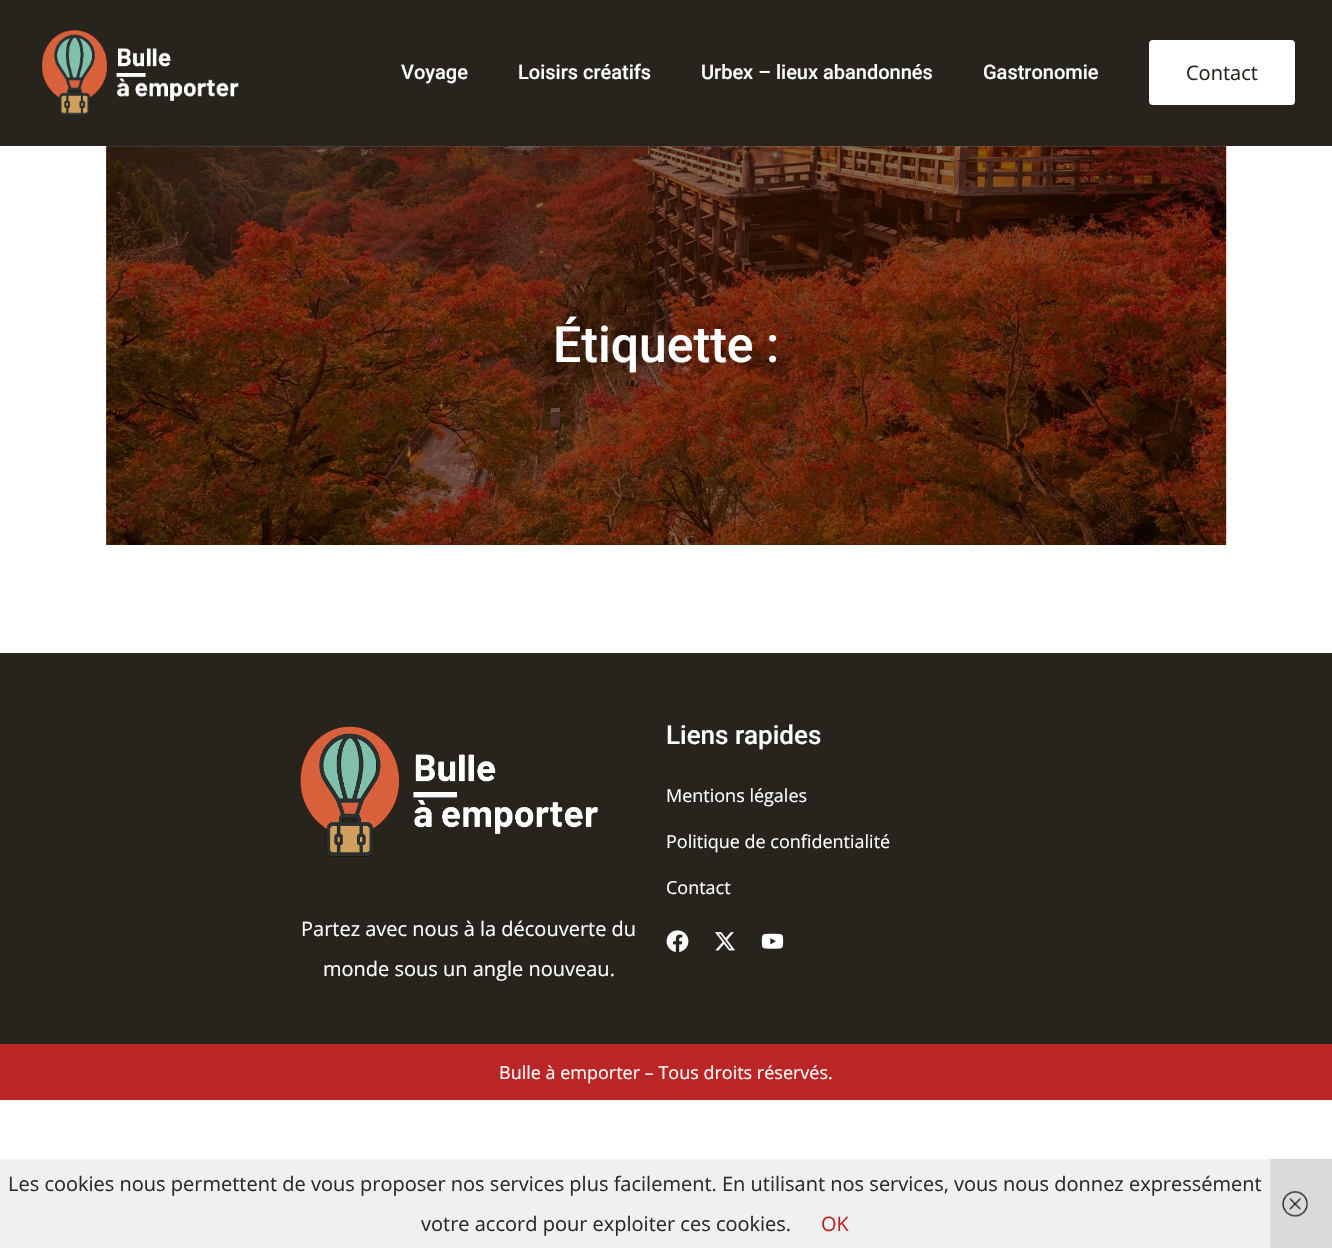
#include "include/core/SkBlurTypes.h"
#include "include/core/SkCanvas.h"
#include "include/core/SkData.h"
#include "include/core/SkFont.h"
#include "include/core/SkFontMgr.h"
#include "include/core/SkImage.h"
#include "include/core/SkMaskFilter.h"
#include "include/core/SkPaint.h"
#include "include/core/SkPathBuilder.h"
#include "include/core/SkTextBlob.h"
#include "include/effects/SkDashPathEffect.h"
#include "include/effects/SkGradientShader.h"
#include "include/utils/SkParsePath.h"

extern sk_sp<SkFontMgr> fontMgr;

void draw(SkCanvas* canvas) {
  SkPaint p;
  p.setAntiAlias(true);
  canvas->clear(SK_ColorWHITE);
  p.setColor(SkColorSetRGB(39, 36, 29));
  canvas->drawRect(SkRect::MakeLTRB(0, 0, 1332, 146), p);
  canvas->drawImageRect(SkImages::DeferredFromEncodedData(SkData::MakeFromFileName("images/1.png")), SkRect::MakeLTRB(42, 30, 239, 116), SkSamplingOptions());
  p.setColor(SK_ColorWHITE);
  canvas->drawRoundRect(SkRect::MakeLTRB(1149, 40, 1295, 105), 4, 4, p);
  p.setColor(SkColorSetRGB(129, 130, 131));
  canvas->drawRect(SkRect::MakeLTRB(106, 146, 1226, 545), p);
  canvas->drawImageRect(SkImages::DeferredFromEncodedData(SkData::MakeFromFileName("images/2.png")), SkRect::MakeLTRB(106, 146, 1227, 545), SkSamplingOptions());
  p.setColor(SkColorSetRGB(39, 36, 29));
  canvas->drawRect(SkRect::MakeLTRB(0, 653, 1332, 1044), p);
  canvas->drawImageRect(SkImages::DeferredFromEncodedData(SkData::MakeFromFileName("images/3.png")), SkRect::MakeLTRB(666, 930, 689, 952), SkSamplingOptions());
  canvas->drawImageRect(SkImages::DeferredFromEncodedData(SkData::MakeFromFileName("images/4.png")), SkRect::MakeLTRB(715, 932, 735, 951), SkSamplingOptions());
  canvas->drawImageRect(SkImages::DeferredFromEncodedData(SkData::MakeFromFileName("images/5.png")), SkRect::MakeLTRB(761, 933, 784, 949), SkSamplingOptions());
  canvas->drawImageRect(SkImages::DeferredFromEncodedData(SkData::MakeFromFileName("images/6.png")), SkRect::MakeLTRB(300, 726, 598, 857), SkSamplingOptions());
  p.setColor(SkColorSetRGB(186, 37, 37));
  canvas->drawRect(SkRect::MakeLTRB(0, 1044, 1332, 1100), p);
  p.setColor(SkColorSetRGB(240, 240, 240));
  canvas->drawRect(SkRect::MakeLTRB(0, 1159, 1270, 1248), p);
  p.setColor(SkColorSetRGB(218, 218, 218));
  canvas->drawRect(SkRect::MakeLTRB(1270, 1159, 1332, 1248), p);
  canvas->drawImageRect(SkImages::DeferredFromEncodedData(SkData::MakeFromFileName("images/7.png")), SkRect::MakeLTRB(1282, 1190, 1308, 1217), SkSamplingOptions());
  SkFont font1(fontMgr->matchFamilyStyle("Roboto", SkFontStyle(500, SkFontStyle::kNormal_Width, SkFontStyle::kUpright_Slant)), 20);
  font1.setSubpixel(true);
  p.setColor(SK_ColorWHITE);
  canvas->drawString("Voyage", 401, 79, font1, p);
  canvas->drawString("Loisirs créatifs", 518, 79, font1, p);
  canvas->drawString("Urbex – lieux abandonnés", 701, 79, font1, p);
  canvas->drawString("Gastronomie", 983, 79, font1, p);
  SkFont font2(fontMgr->matchFamilyStyle("Open Sans", SkFontStyle::Normal()), 20);
  font2.setSubpixel(true);
  p.setColor(SkColorSetRGB(39, 36, 29));
  canvas->drawString("Contact", 1186, 80, font2, p);
  SkFont font3(fontMgr->matchFamilyStyle("Roboto", SkFontStyle(500, SkFontStyle::kNormal_Width, SkFontStyle::kUpright_Slant)), 50);
  font3.setSubpixel(true);
  p.setColor(SK_ColorWHITE);
  canvas->drawString("Étiquette :", 553, 362, font3, p);
  SkFont font4(fontMgr->matchFamilyStyle("Roboto", SkFontStyle(500, SkFontStyle::kNormal_Width, SkFontStyle::kUpright_Slant)), 26);
  font4.setSubpixel(true);
  canvas->drawString("Liens rapides", 666, 744, font4, p);
  SkFont font5(fontMgr->matchFamilyStyle("Open Sans", SkFontStyle::Normal()), 18);
  font5.setSubpixel(true);
  canvas->drawString("Mentions légales", 666, 802, font5, p);
  canvas->drawString("Politique de confidentialité", 666, 848, font5, p);
  canvas->drawString("Contact", 666, 894, font5, p);
  canvas->drawString("Partez avec nous à la découverte du", 301, 936, font2, p);
  canvas->drawString("monde sous un angle nouveau.", 323, 976, font2, p);
  canvas->drawString("Bulle à emporter – Tous droits réservés.", 499, 1079, font5, p);
  p.setColor(SkColorSetRGB(42, 42, 42));
  canvas->drawString("Les cookies nous permettent de vous proposer nos services plus facilement. En utilisant nos services, vous nous donnez expressément", 8, 1191, font2, p);
  canvas->drawString("votre accord pour exploiter ces cookies.", 421, 1231, font2, p);
  p.setColor(SkColorSetRGB(186, 37, 37));
  canvas->drawString("OK", 821, 1231, font2, p);
}
